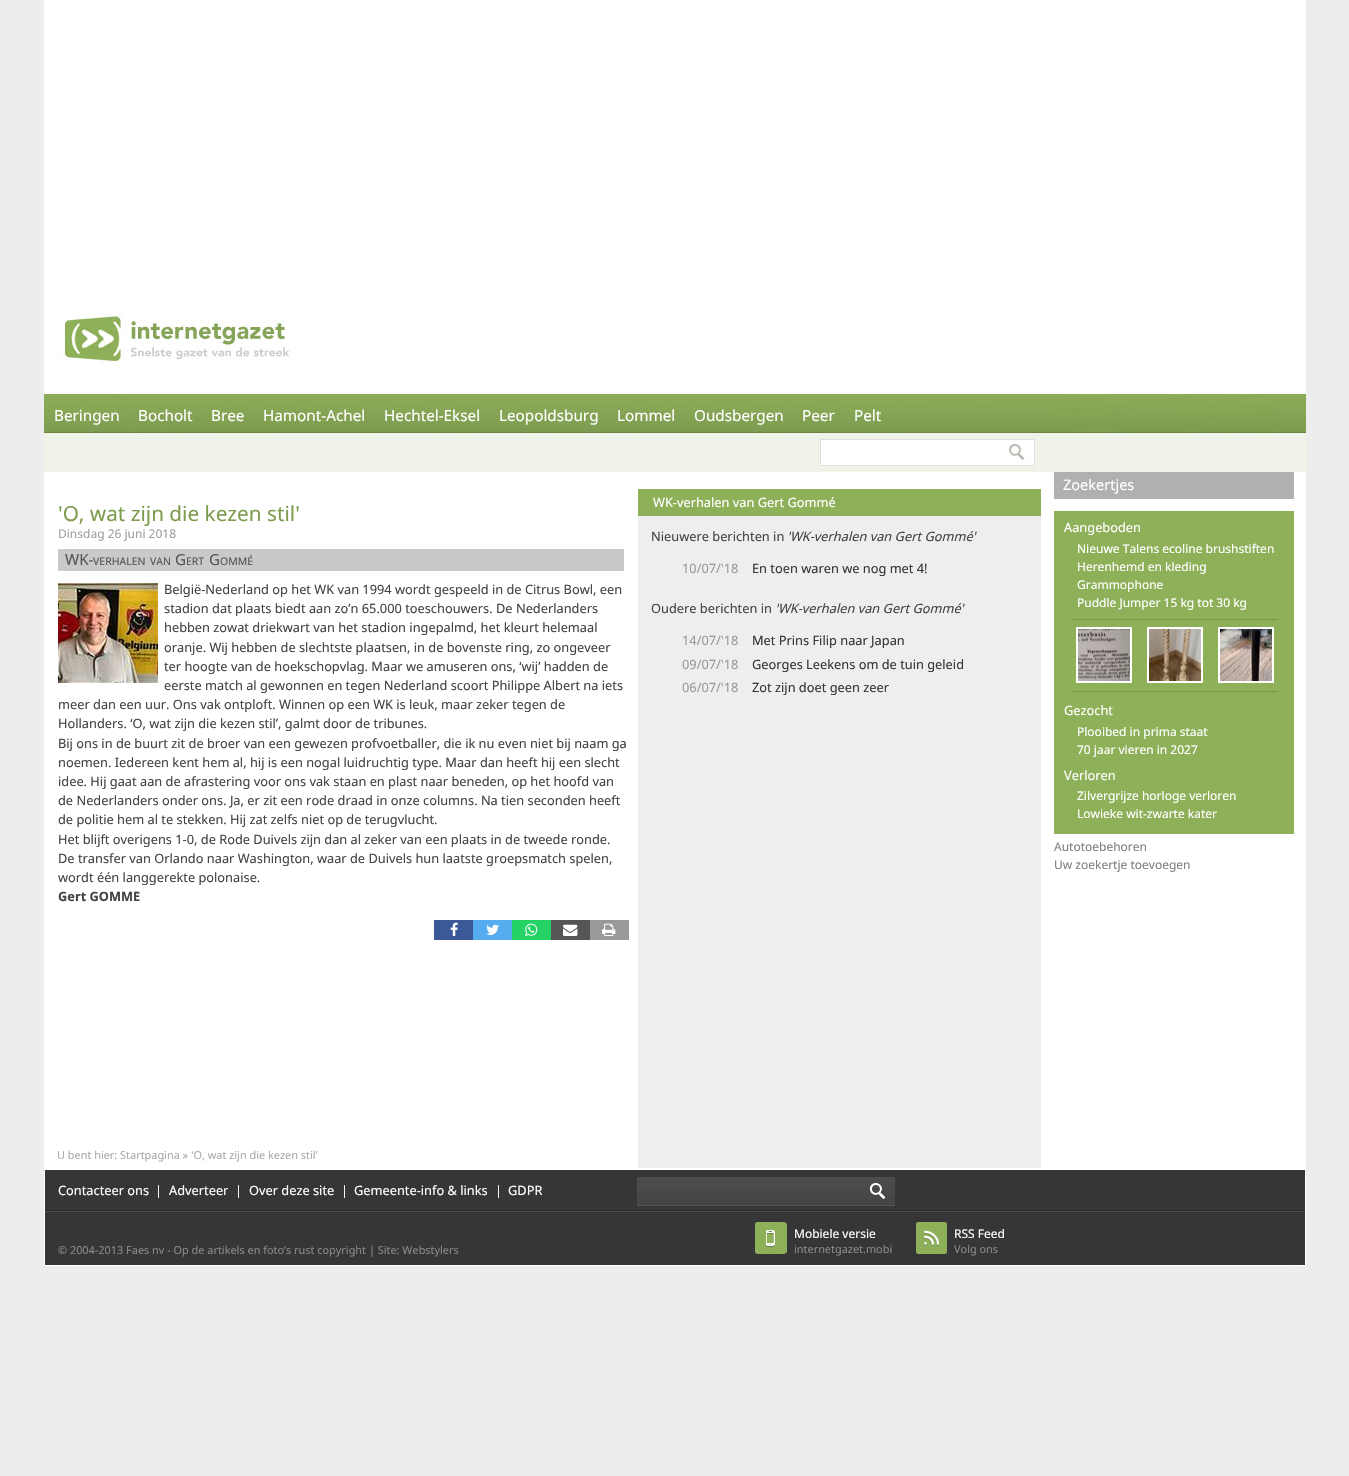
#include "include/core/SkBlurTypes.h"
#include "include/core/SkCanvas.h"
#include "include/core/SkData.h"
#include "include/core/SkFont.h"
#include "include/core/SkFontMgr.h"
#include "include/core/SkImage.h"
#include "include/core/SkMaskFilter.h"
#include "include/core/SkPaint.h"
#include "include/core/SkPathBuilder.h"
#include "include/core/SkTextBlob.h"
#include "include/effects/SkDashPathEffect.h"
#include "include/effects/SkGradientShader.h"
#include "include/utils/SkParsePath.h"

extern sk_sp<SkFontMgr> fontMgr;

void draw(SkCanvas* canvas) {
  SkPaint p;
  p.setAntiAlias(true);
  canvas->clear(SkColorSetRGB(237, 237, 237));
  p.setColor(SK_ColorWHITE);
  canvas->drawRect(SkRect::MakeLTRB(44, 0, 1306, 280), p);
  canvas->drawImageRect(SkImages::DeferredFromEncodedData(SkData::MakeFromFileName("images/1.png")), SkRect::MakeLTRB(44, 472, 1306, 1150), SkSamplingOptions());
  canvas->drawImageRect(SkImages::DeferredFromEncodedData(SkData::MakeFromFileName("images/2.png")), SkRect::MakeLTRB(44, 280, 1306, 472), SkSamplingOptions());
  p.setColor(SkColorSetRGB(201, 201, 201));
  canvas->drawRect(SkRect::MakeLTRB(58, 549, 624, 571), p);
  canvas->drawImageRect(SkImages::DeferredFromEncodedData(SkData::MakeFromFileName("images/3.png")), SkRect::MakeLTRB(58, 583, 158, 683), SkSamplingOptions());
  p.setColor(SkColorSetRGB(59, 89, 152));
  canvas->drawRect(SkRect::MakeLTRB(434, 920, 473, 940), p);
  canvas->drawImageRect(SkImages::DeferredFromEncodedData(SkData::MakeFromFileName("images/4.png")), SkRect::MakeLTRB(450, 922, 458, 936), SkSamplingOptions());
  p.setColor(SkColorSetRGB(85, 172, 238));
  canvas->drawRect(SkRect::MakeLTRB(473, 920, 512, 940), p);
  canvas->drawImageRect(SkImages::DeferredFromEncodedData(SkData::MakeFromFileName("images/5.png")), SkRect::MakeLTRB(486, 924, 499, 935), SkSamplingOptions());
  p.setColor(SkColorSetRGB(36, 210, 102));
  canvas->drawRect(SkRect::MakeLTRB(512, 920, 551, 940), p);
  canvas->drawImageRect(SkImages::DeferredFromEncodedData(SkData::MakeFromFileName("images/6.png")), SkRect::MakeLTRB(525, 923, 538, 936), SkSamplingOptions());
  p.setColor(SkColorSetRGB(85, 85, 85));
  canvas->drawRect(SkRect::MakeLTRB(551, 920, 590, 940), p);
  canvas->drawImageRect(SkImages::DeferredFromEncodedData(SkData::MakeFromFileName("images/7.png")), SkRect::MakeLTRB(563, 924, 578, 936), SkSamplingOptions());
  p.setColor(SkColorSetRGB(153, 153, 153));
  canvas->drawRect(SkRect::MakeLTRB(590, 920, 629, 940), p);
  canvas->drawImageRect(SkImages::DeferredFromEncodedData(SkData::MakeFromFileName("images/8.png")), SkRect::MakeLTRB(602, 923, 616, 936), SkSamplingOptions());
  p.setColor(SK_ColorWHITE);
  canvas->drawRect(SkRect::MakeLTRB(638, 472, 1041, 489), p);
  p.setColor(SkColorSetRGB(142, 176, 89));
  canvas->drawRect(SkRect::MakeLTRB(638, 489, 1041, 516), p);
  p.setColor(SkColorSetRGB(176, 176, 176));
  canvas->drawRect(SkRect::MakeLTRB(1054, 472, 1294, 499), p);
  p.setColor(SkColorSetRGB(142, 176, 89));
  canvas->drawRect(SkRect::MakeLTRB(1054, 511, 1294, 834), p);
  p.setColor(SkColorSetRGB(121, 150, 76));
  canvas->drawRect(SkRect::MakeLTRB(1071, 619, 1278, 620), p);
  canvas->drawRect(SkRect::MakeLTRB(1071, 691, 1278, 692), p);
  p.setStyle(SkPaint::kStroke_Style);
  p.setStrokeWidth(2);
  p.setColor(SK_ColorWHITE);
  canvas->drawRect(SkRect::MakeLTRB(1077, 628, 1131, 682), p);
  canvas->drawImageRect(SkImages::DeferredFromEncodedData(SkData::MakeFromFileName("images/9.png")), SkRect::MakeLTRB(1078, 629, 1130, 681), SkSamplingOptions());
  canvas->drawRect(SkRect::MakeLTRB(1148, 628, 1202, 682), p);
  canvas->drawImageRect(SkImages::DeferredFromEncodedData(SkData::MakeFromFileName("images/10.png")), SkRect::MakeLTRB(1149, 629, 1201, 681), SkSamplingOptions());
  canvas->drawRect(SkRect::MakeLTRB(1219, 628, 1273, 682), p);
  canvas->drawImageRect(SkImages::DeferredFromEncodedData(SkData::MakeFromFileName("images/11.png")), SkRect::MakeLTRB(1220, 629, 1272, 681), SkSamplingOptions());
  canvas->drawImageRect(SkImages::DeferredFromEncodedData(SkData::MakeFromFileName("images/12.png")), SkRect::MakeLTRB(44, 1150, 1306, 1266), SkSamplingOptions());
  SkFont font1(fontMgr->matchFamilyStyle("Noto Sans", SkFontStyle::Normal()), 15.25f);
  font1.setSubpixel(true);
  p.setStyle(SkPaint::kFill_Style);
  canvas->drawString("Beringen", 54, 421, font1, p);
  canvas->drawString("Bocholt", 138, 421, font1, p);
  canvas->drawString("Bree", 211, 421, font1, p);
  canvas->drawString("Hamont-Achel", 263, 421, font1, p);
  canvas->drawString("Hechtel-Eksel", 384, 421, font1, p);
  canvas->drawString("Leopoldsburg", 499, 421, font1, p);
  canvas->drawString("Lommel", 617, 421, font1, p);
  canvas->drawString("Oudsbergen", 694, 421, font1, p);
  canvas->drawString("Peer", 802, 421, font1, p);
  canvas->drawString("Pelt", 854, 421, font1, p);
  SkFont font2(fontMgr->matchFamilyStyle("Noto Sans", SkFontStyle::Normal()), 20.75f);
  font2.setSubpixel(true);
  p.setColor(SkColorSetRGB(125, 156, 78));
  canvas->drawString("'O, wat zijn die kezen stil'", 58, 521, font2, p);
  SkFont font3(fontMgr->matchFamilyStyle("Noto Sans", SkFontStyle::Normal()), 12);
  font3.setSubpixel(true);
  p.setColor(SkColorSetRGB(161, 161, 161));
  canvas->drawString("Dinsdag 26 juni 2018", 58, 538, font3, p);
  p.setColor(SkColorSetRGB(85, 85, 85));
  canvas->drawString("WK-", 65, 565, font1, p);
  SkFont font4(fontMgr->matchFamilyStyle("Noto Sans", SkFontStyle::Normal()), 10.5f);
  font4.setSubpixel(true);
  canvas->drawString("VERHALEN", 93, 565, font4, p);
  canvas->drawString("VAN", 150, 565, font4, p);
  canvas->drawString("G", 175, 565, font1, p);
  canvas->drawString("ERT", 186, 565, font4, p);
  canvas->drawString("G", 209, 565, font1, p);
  canvas->drawString("OMMÉ", 220, 565, font4, p);
  SkFont font5(fontMgr->matchFamilyStyle("Noto Sans", SkFontStyle::Normal()), 12.8f);
  font5.setSubpixel(true);
  p.setColor(SkColorSetRGB(68, 68, 68));
  canvas->drawString("België-Nederland op het WK van 1994 wordt gespeeld in de Citrus Bowl, een", 164, 594, font5, p);
  canvas->drawString("stadion dat plaats biedt aan zo’n 65.000 toeschouwers. De Nederlanders", 164, 613, font5, p);
  canvas->drawString("hebben zowat driekwart van het stadion ingepalmd, het kleurt helemaal", 164, 632, font5, p);
  canvas->drawString("oranje. Wij hebben de slechtste plaatsen, in de bovenste ring, zo ongeveer", 164, 652, font5, p);
  canvas->drawString("ter hoogte van de hoekschopvlag. Maar we amuseren ons, ‘wij’ hadden de", 164, 671, font5, p);
  canvas->drawString("eerste match al gewonnen en tegen Nederland scoort Philippe Albert na iets", 164, 690, font5, p);
  canvas->drawString("meer dan een uur. Ons vak ontploft. Winnen op een WK is leuk, maar zeker tegen de", 58, 709, font5, p);
  canvas->drawString("Hollanders. ‘O, wat zijn die kezen stil’, galmt door de tribunes.", 58, 728, font5, p);
  canvas->drawString("Bij ons in de buurt zit de broer van een gewezen profvoetballer, die ik nu even niet bij naam ga", 58, 748, font5, p);
  canvas->drawString("noemen. Iedereen kent hem al, hij is een nogal luidruchtig type. Maar dan heeft hij een slecht", 58, 767, font5, p);
  canvas->drawString("idee. Hij gaat aan de afrastering voor ons vak staan en plast naar beneden, op het hoofd van", 58, 786, font5, p);
  canvas->drawString("de Nederlanders onder ons. Ja, er zit een rode draad in onze columns. Na tien seconden heeft", 58, 805, font5, p);
  canvas->drawString("de politie hem al te stekken. Hij zat zelfs niet op de terugvlucht.", 58, 824, font5, p);
  canvas->drawString("Het blijft overigens 1-0, de Rode Duivels zijn dan al zeker van een plaats in de tweede ronde.", 58, 844, font5, p);
  canvas->drawString("De transfer van Orlando naar Washington, waar de Duivels hun laatste groepsmatch spelen,", 58, 863, font5, p);
  canvas->drawString("wordt één langgerekte polonaise.", 58, 882, font5, p);
  SkFont font6(fontMgr->matchFamilyStyle("Noto Sans", SkFontStyle::Bold()), 12.8f);
  font6.setSubpixel(true);
  canvas->drawString("Gert GOMME", 58, 901, font6, p);
  p.setColor(SK_ColorWHITE);
  canvas->drawString("WK-verhalen van Gert Gommé", 653, 507, font5, p);
  p.setColor(SkColorSetRGB(68, 68, 68));
  canvas->drawString("Nieuwere berichten in", 651, 541, font5, p);
  SkFont font7(fontMgr->matchFamilyStyle("Noto Sans", SkFontStyle::Italic()), 12.8f);
  font7.setSubpixel(true);
  canvas->drawString("'WK-verhalen van Gert Gommé'", 787, 541, font7, p);
  p.setColor(SkColorSetRGB(154, 154, 154));
  canvas->drawString("10/07/'18", 682, 573, font5, p);
  p.setColor(SkColorSetRGB(54, 54, 54));
  canvas->drawString("En toen waren we nog met 4!", 752, 573, font5, p);
  p.setColor(SkColorSetRGB(68, 68, 68));
  canvas->drawString("Oudere berichten in", 651, 613, font5, p);
  canvas->drawString("'WK-verhalen van Gert Gommé'", 775, 613, font7, p);
  p.setColor(SkColorSetRGB(154, 154, 154));
  canvas->drawString("14/07/'18", 682, 645, font5, p);
  p.setColor(SkColorSetRGB(54, 54, 54));
  canvas->drawString("Met Prins Filip naar Japan", 752, 645, font5, p);
  p.setColor(SkColorSetRGB(154, 154, 154));
  canvas->drawString("09/07/'18", 682, 669, font5, p);
  p.setColor(SkColorSetRGB(54, 54, 54));
  canvas->drawString("Georges Leekens om de tuin geleid", 752, 669, font5, p);
  p.setColor(SkColorSetRGB(154, 154, 154));
  canvas->drawString("06/07/'18", 682, 692, font5, p);
  p.setColor(SkColorSetRGB(54, 54, 54));
  canvas->drawString("Zot zijn doet geen zeer", 752, 692, font5, p);
  SkFont font8(fontMgr->matchFamilyStyle("Noto Sans", SkFontStyle::Normal()), 14.5f);
  font8.setSubpixel(true);
  p.setColor(SK_ColorWHITE);
  canvas->drawString("Zoekertjes", 1063, 490, font8, p);
  canvas->drawString("Aangeboden", 1064, 532, font5, p);
  canvas->drawString("Nieuwe Talens ecoline brushstiften", 1077, 553, font3, p);
  canvas->drawString("Herenhemd en kleding", 1077, 571, font3, p);
  canvas->drawString("Grammophone", 1077, 589, font3, p);
  canvas->drawString("Puddle Jumper 15 kg tot 30 kg", 1077, 607, font3, p);
  canvas->drawString("Gezocht", 1064, 715, font5, p);
  canvas->drawString("Plooibed in prima staat", 1077, 736, font3, p);
  canvas->drawString("70 jaar vieren in 2027", 1077, 754, font3, p);
  canvas->drawString("Verloren", 1064, 780, font5, p);
  canvas->drawString("Zilvergrijze horloge verloren", 1077, 800, font3, p);
  canvas->drawString("Lowieke wit-zwarte kater", 1077, 818, font3, p);
  p.setColor(SkColorSetRGB(128, 128, 128));
  canvas->drawString("Autotoebehoren", 1054, 851, font3, p);
  canvas->drawString("Uw zoekertje toevoegen", 1054, 869, font3, p);
  SkFont font9(fontMgr->matchFamilyStyle("Noto Sans", SkFontStyle::Normal()), 10.9f);
  font9.setSubpixel(true);
  p.setColor(SkColorSetRGB(170, 170, 170));
  canvas->drawString("U bent hier: Startpagina » 'O, wat zijn die kezen stil'", 57, 1159, font9, p);
  p.setColor(SK_ColorWHITE);
  canvas->drawString("Contacteer ons", 58, 1195, font5, p);
  canvas->drawString("|", 155, 1195, font5, p);
  canvas->drawString("Adverteer", 169, 1195, font5, p);
  canvas->drawString("|", 235, 1195, font5, p);
  canvas->drawString("Over deze site", 249, 1195, font5, p);
  canvas->drawString("|", 341, 1195, font5, p);
  canvas->drawString("Gemeente-info & links", 354, 1195, font5, p);
  canvas->drawString("|", 495, 1195, font5, p);
  canvas->drawString("GDPR", 508, 1195, font5, p);
  p.setColor(SkColorSetRGB(137, 137, 137));
  canvas->drawString("© 2004-2013 Faes nv - Op de artikels en foto’s rust copyright | Site: Webstylers", 58, 1254, font9, p);
  p.setColor(SK_ColorWHITE);
  canvas->drawString("Mobiele versie", 794, 1238, font3, p);
  p.setColor(SkColorSetRGB(137, 137, 137));
  canvas->drawString("internetgazet.mobi", 794, 1253, font9, p);
  p.setColor(SK_ColorWHITE);
  canvas->drawString("RSS Feed", 954, 1238, font3, p);
  p.setColor(SkColorSetRGB(137, 137, 137));
  canvas->drawString("Volg ons", 954, 1253, font9, p);
}
